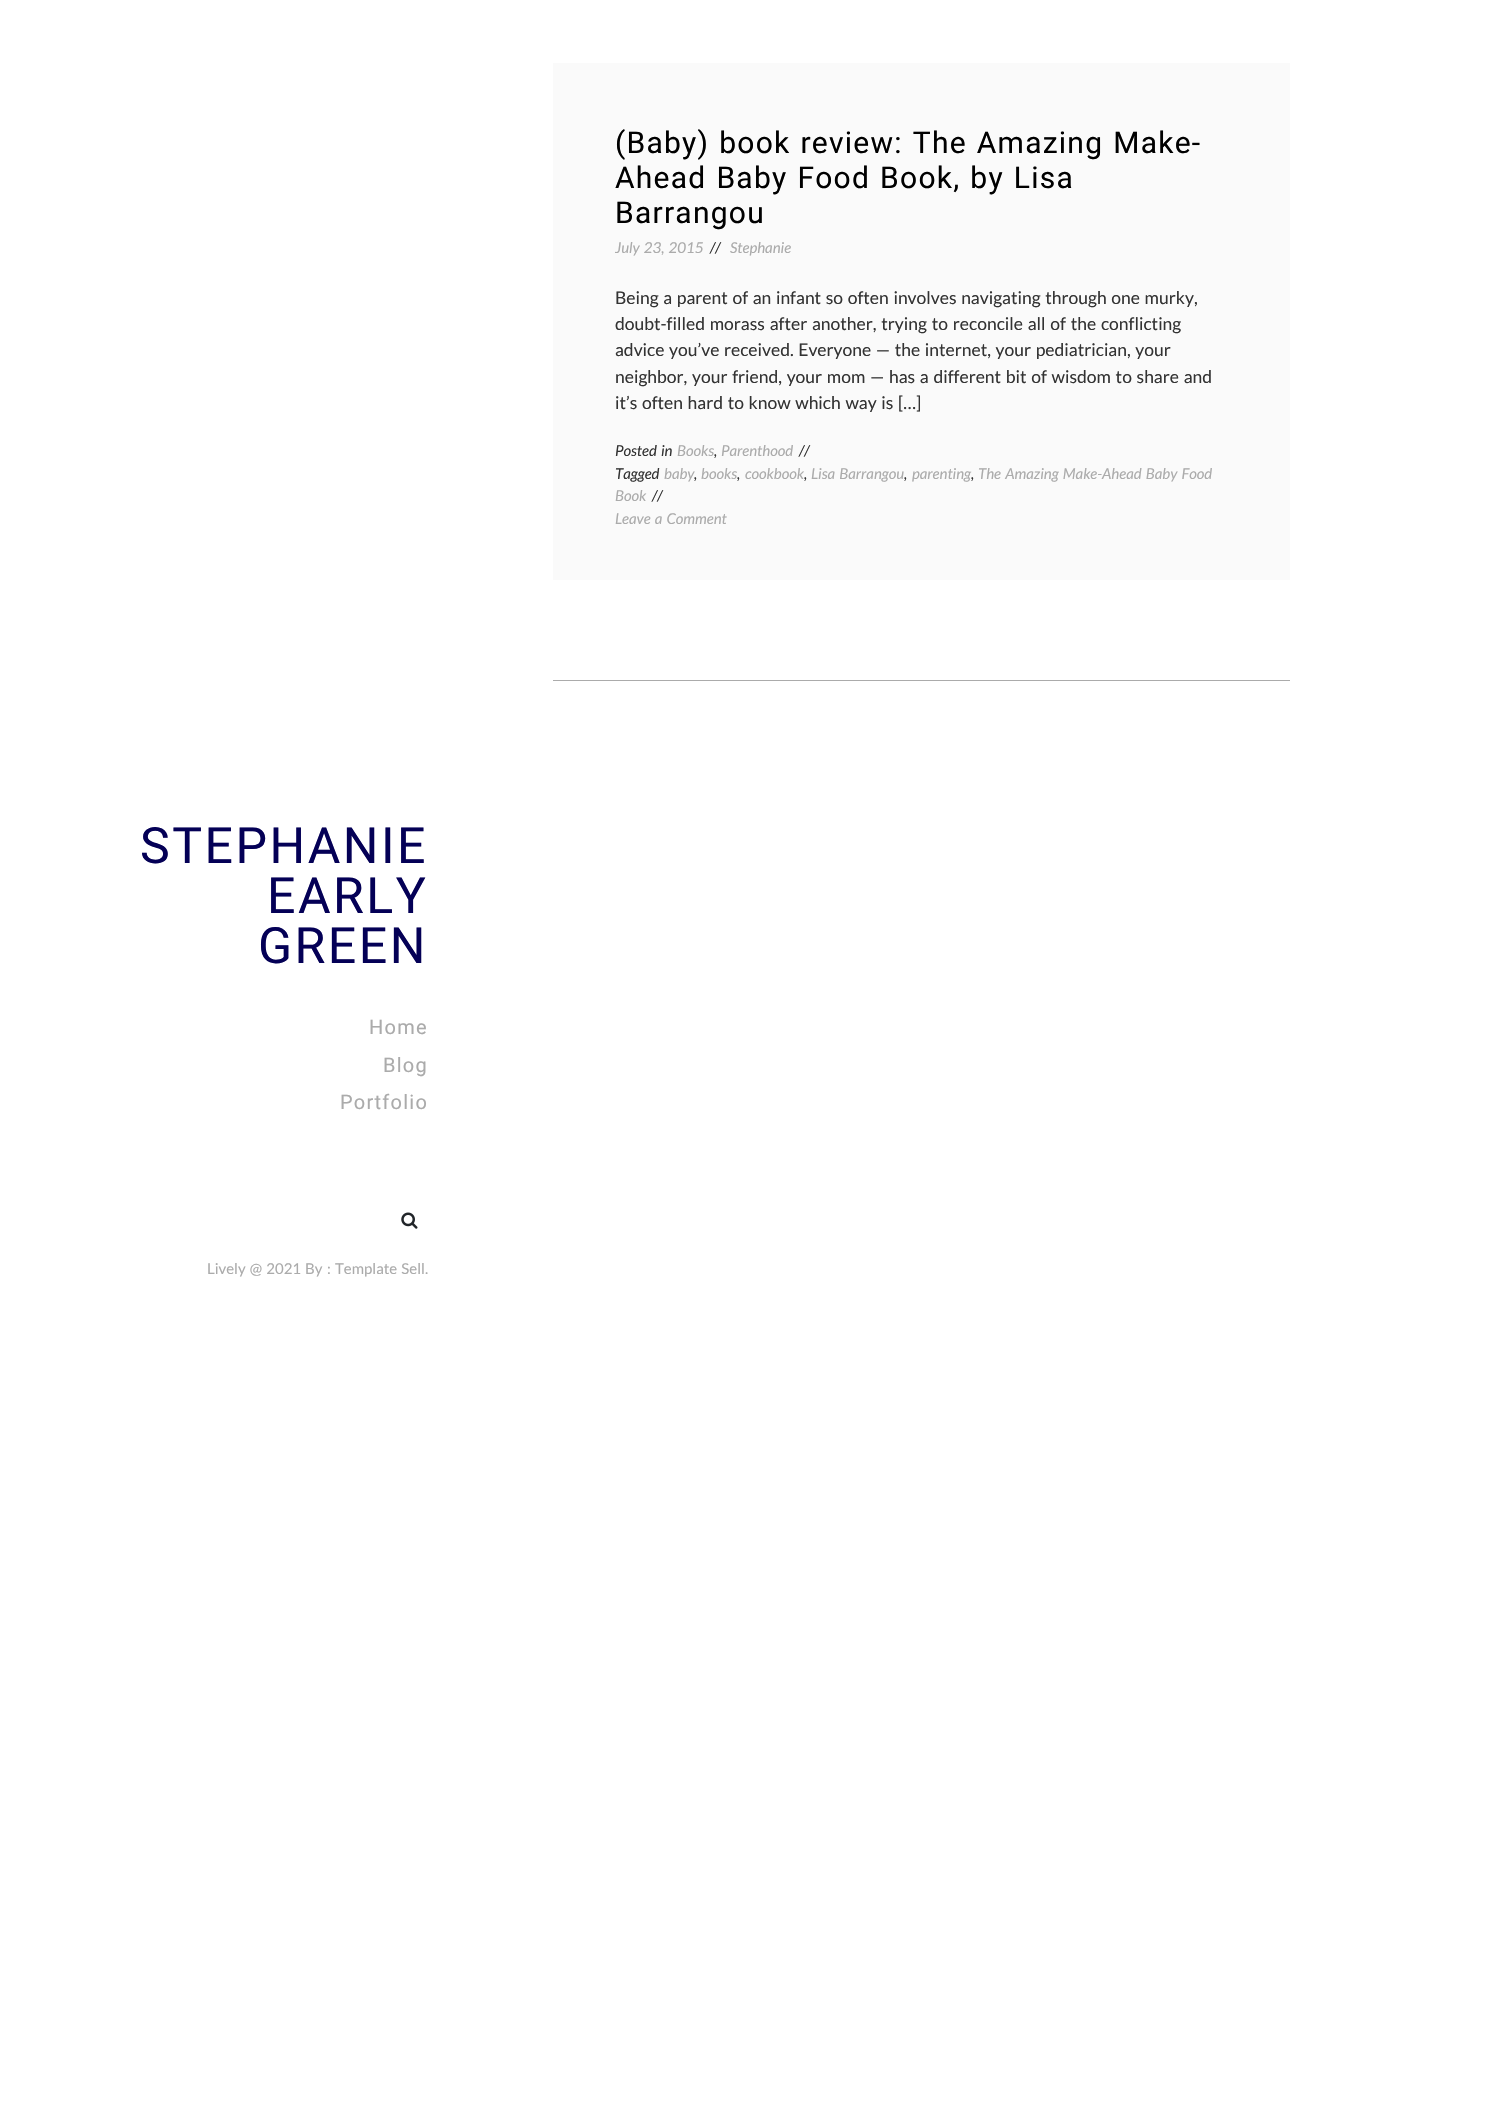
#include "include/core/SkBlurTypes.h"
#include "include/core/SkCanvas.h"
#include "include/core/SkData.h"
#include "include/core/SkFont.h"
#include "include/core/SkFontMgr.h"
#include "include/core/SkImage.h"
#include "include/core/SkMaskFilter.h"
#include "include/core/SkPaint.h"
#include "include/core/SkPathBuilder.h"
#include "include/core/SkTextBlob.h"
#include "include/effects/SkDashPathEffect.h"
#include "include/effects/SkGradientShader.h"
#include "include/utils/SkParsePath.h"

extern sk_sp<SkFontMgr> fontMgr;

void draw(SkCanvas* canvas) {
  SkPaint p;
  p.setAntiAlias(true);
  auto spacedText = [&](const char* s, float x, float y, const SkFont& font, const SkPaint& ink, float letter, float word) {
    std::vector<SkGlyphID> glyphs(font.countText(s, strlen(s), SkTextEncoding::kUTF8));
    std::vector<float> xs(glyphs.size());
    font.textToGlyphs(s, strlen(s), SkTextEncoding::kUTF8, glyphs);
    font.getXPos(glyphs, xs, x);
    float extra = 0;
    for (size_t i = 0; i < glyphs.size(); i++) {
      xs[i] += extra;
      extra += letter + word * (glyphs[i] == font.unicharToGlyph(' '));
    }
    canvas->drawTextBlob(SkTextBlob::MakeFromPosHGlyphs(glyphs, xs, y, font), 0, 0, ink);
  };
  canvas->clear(SK_ColorWHITE);
  p.setColor(SkColorSetRGB(250, 250, 250));
  canvas->drawRect(SkRect::MakeLTRB(553, 63, 1290, 580), p);
  canvas->drawImageRect(SkImages::DeferredFromEncodedData(SkData::MakeFromFileName("images/1.png")), SkRect::MakeLTRB(401, 1212, 418, 1229), SkSamplingOptions());
  p.setColor(SkColorSetRGB(171, 171, 171));
  canvas->drawRect(SkRect::MakeLTRB(553, 680, 1290, 681), p);
  SkFont font1(fontMgr->matchFamilyStyle("Roboto", SkFontStyle::Normal()), 30);
  font1.setSubpixel(true);
  p.setColor(SK_ColorBLACK);
  spacedText("(Baby) book review: The Amazing Make-", 615, 153, font1, p, 1.25f, 1.25f);
  spacedText("Ahead Baby Food Book, by Lisa", 615, 188, font1, p, 1.25f, 1.25f);
  spacedText("Barrangou", 615, 223, font1, p, 1.25f, 0);
  SkFont font2(fontMgr->matchFamilyStyle("Lato", SkFontStyle::Italic()), 15);
  font2.setSubpixel(true);
  p.setColor(SkColorSetRGB(171, 171, 171));
  spacedText("July 23, 2015", 615, 253, font2, p, 0, 1.25f);
  p.setColor(SkColorSetRGB(51, 51, 51));
  canvas->drawString("//", 710, 253, font2, p);
  p.setColor(SkColorSetRGB(171, 171, 171));
  canvas->drawString("Stephanie", 730, 253, font2, p);
  SkFont font3(fontMgr->matchFamilyStyle("Lato", SkFontStyle::Normal()), 17.5f);
  font3.setSubpixel(true);
  p.setColor(SkColorSetRGB(51, 51, 51));
  spacedText("Being a parent of an infant so often involves navigating through one murky,", 615, 304, font3, p, 0, 1.25f);
  spacedText("doubt-filled morass after another, trying to reconcile all of the conflicting", 615, 330, font3, p, 0, 1.4f);
  spacedText("advice you’ve received. Everyone — the internet, your pediatrician, your", 615, 356, font3, p, 0, 1.25f);
  spacedText("neighbor, your friend, your mom — has a different bit of wisdom to share and", 615, 383, font3, p, 0, 1.3f);
  spacedText("it’s often hard to know which way is […]", 615, 409, font3, p, 0, 1.25f);
  spacedText("Posted in", 615, 456, font2, p, 0, 1.25f);
  p.setColor(SkColorSetRGB(171, 171, 171));
  canvas->drawString("Books", 677, 456, font2, p);
  p.setColor(SkColorSetRGB(51, 51, 51));
  canvas->drawString(",", 714, 456, font2, p);
  p.setColor(SkColorSetRGB(171, 171, 171));
  canvas->drawString("Parenthood", 721, 456, font2, p);
  p.setColor(SkColorSetRGB(51, 51, 51));
  canvas->drawString("//", 799, 456, font2, p);
  canvas->drawString("Tagged", 615, 479, font2, p);
  p.setColor(SkColorSetRGB(171, 171, 171));
  canvas->drawString("baby", 664, 479, font2, p);
  p.setColor(SkColorSetRGB(51, 51, 51));
  canvas->drawString(",", 694, 479, font2, p);
  p.setColor(SkColorSetRGB(171, 171, 171));
  canvas->drawString("books", 701, 479, font2, p);
  p.setColor(SkColorSetRGB(51, 51, 51));
  canvas->drawString(",", 737, 479, font2, p);
  p.setColor(SkColorSetRGB(171, 171, 171));
  canvas->drawString("cookbook", 745, 479, font2, p);
  p.setColor(SkColorSetRGB(51, 51, 51));
  canvas->drawString(",", 804, 479, font2, p);
  p.setColor(SkColorSetRGB(171, 171, 171));
  spacedText("Lisa Barrangou", 811, 479, font2, p, 0, 1.25f);
  p.setColor(SkColorSetRGB(51, 51, 51));
  canvas->drawString(",", 904, 479, font2, p);
  p.setColor(SkColorSetRGB(171, 171, 171));
  canvas->drawString("parenting", 912, 479, font2, p);
  p.setColor(SkColorSetRGB(51, 51, 51));
  canvas->drawString(",", 971, 479, font2, p);
  p.setColor(SkColorSetRGB(171, 171, 171));
  spacedText("The Amazing Make-Ahead Baby Food", 978, 479, font2, p, 0, 1.25f);
  canvas->drawString("Book", 615, 501, font2, p);
  p.setColor(SkColorSetRGB(51, 51, 51));
  canvas->drawString("//", 652, 501, font2, p);
  p.setColor(SkColorSetRGB(171, 171, 171));
  spacedText("Leave a Comment", 615, 524, font2, p, 0, 1.25f);
  SkFont font4(fontMgr->matchFamilyStyle("Roboto", SkFontStyle::Normal()), 50);
  font4.setSubpixel(true);
  p.setColor(SkColorSetRGB(4, 0, 86));
  spacedText("STEPHANIE", 140, 863, font4, p, 2.5f, 0);
  spacedText("EARLY", 267, 913, font4, p, 2.5f, 0);
  spacedText("GREEN", 258, 963, font4, p, 2.5f, 0);
  SkFont font5(fontMgr->matchFamilyStyle("Roboto", SkFontStyle::Normal()), 20);
  font5.setSubpixel(true);
  p.setColor(SkColorSetRGB(171, 171, 171));
  spacedText("Home", 369, 1034, font5, p, 1.25f, 0);
  spacedText("Blog", 383, 1072, font5, p, 1.25f, 0);
  spacedText("Portfolio", 340, 1109, font5, p, 1.25f, 0);
  SkFont font6(fontMgr->matchFamilyStyle("Lato", SkFontStyle::Normal()), 15);
  font6.setSubpixel(true);
  spacedText("Lively @ 2021", 207, 1274, font6, p, 0, 1.25f);
  canvas->drawString("By", 305, 1274, font6, p);
  canvas->drawString(":", 327, 1274, font6, p);
  spacedText("Template Sell", 335, 1274, font6, p, 0, 1.25f);
  canvas->drawString(".", 425, 1274, font6, p);
}
